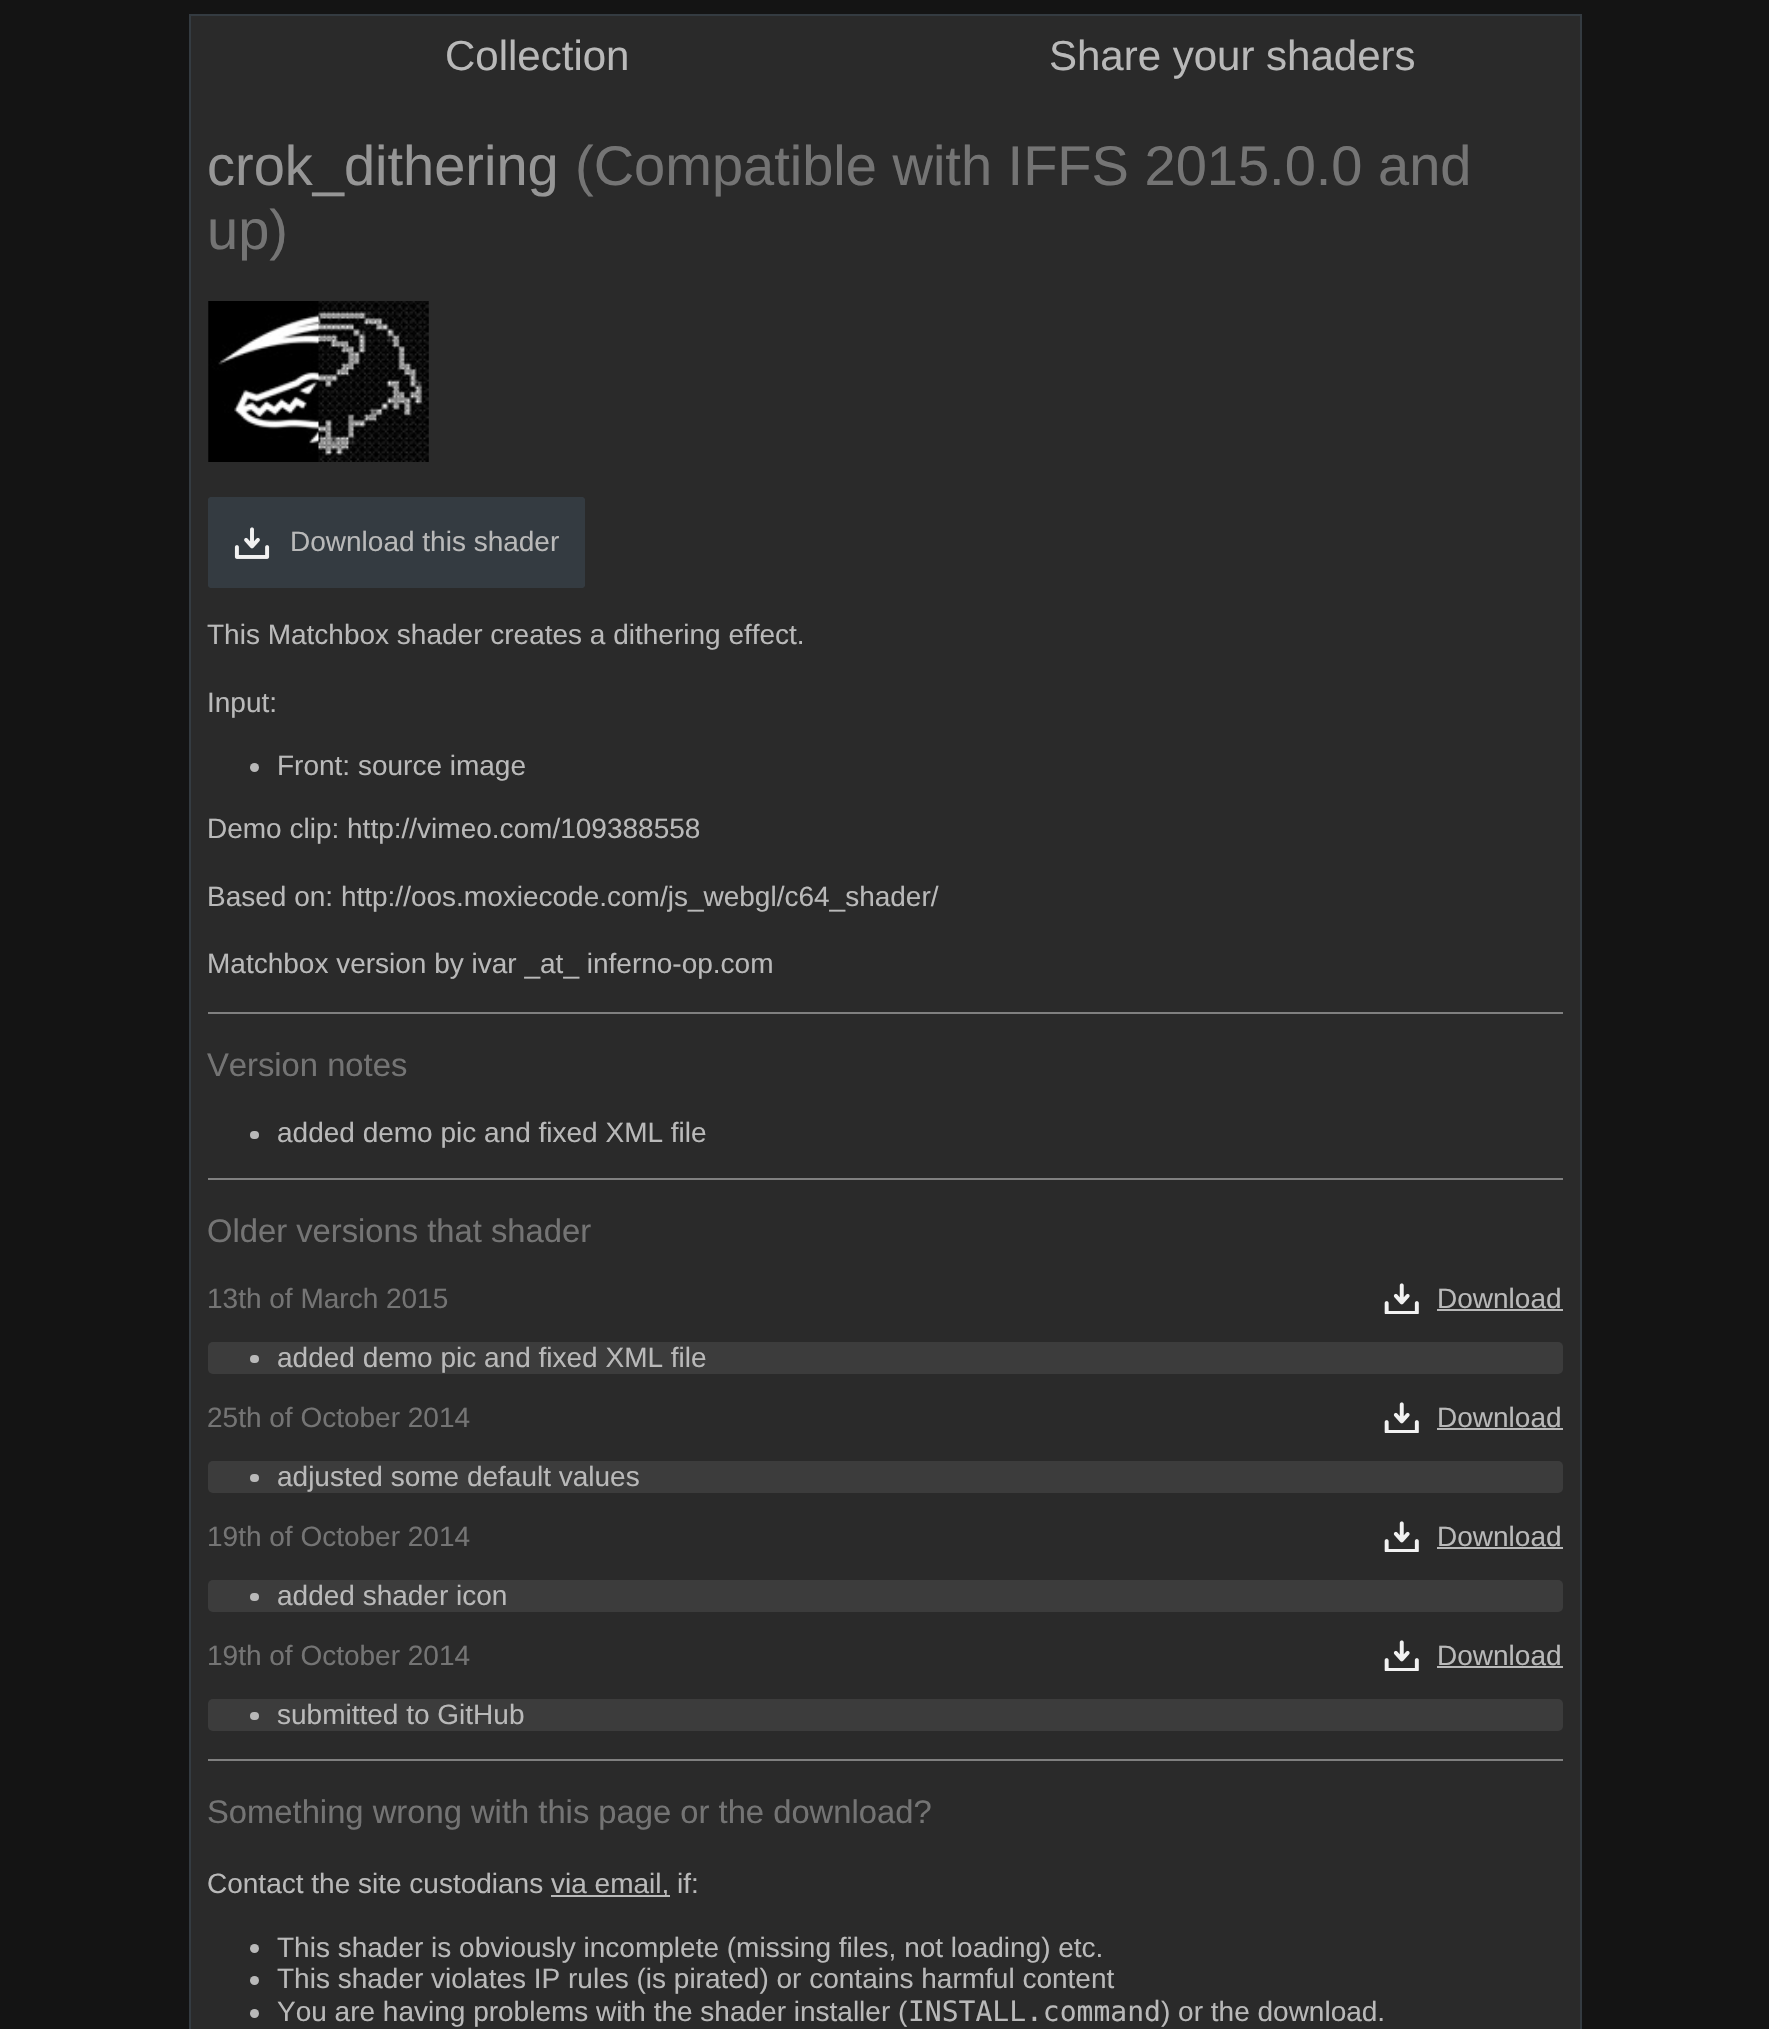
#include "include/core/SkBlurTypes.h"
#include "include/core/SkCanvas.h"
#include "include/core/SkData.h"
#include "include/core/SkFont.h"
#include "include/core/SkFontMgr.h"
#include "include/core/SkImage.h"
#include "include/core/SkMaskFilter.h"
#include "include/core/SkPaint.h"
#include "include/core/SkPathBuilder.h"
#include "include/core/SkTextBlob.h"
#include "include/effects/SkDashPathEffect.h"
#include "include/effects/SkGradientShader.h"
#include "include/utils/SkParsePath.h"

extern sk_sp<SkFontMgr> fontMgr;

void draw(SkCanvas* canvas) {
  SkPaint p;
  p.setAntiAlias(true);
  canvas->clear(SkColorSetRGB(20, 20, 20));
  p.setColor(SkColorSetRGB(42, 42, 42));
  canvas->drawRect(SkRect::MakeLTRB(190, 15, 1581, 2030), p);
  p.setStyle(SkPaint::kStroke_Style);
  p.setStrokeWidth(2);
  p.setColor(SkColorSetRGB(52, 59, 65));
  canvas->drawRect(SkRect::MakeLTRB(190, 15, 1581, 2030), p);
  canvas->drawImageRect(SkImages::DeferredFromEncodedData(SkData::MakeFromFileName("images/1.png")), SkRect::MakeLTRB(208, 301, 429, 462), SkSamplingOptions());
  p.setStyle(SkPaint::kFill_Style);
  canvas->drawRoundRect(SkRect::MakeLTRB(208, 497, 585, 588), 4, 4, p);
  canvas->drawImageRect(SkImages::DeferredFromEncodedData(SkData::MakeFromFileName("images/2.png")), SkRect::MakeLTRB(234, 527, 270, 559), SkSamplingOptions());
  p.setStyle(SkPaint::kStroke_Style);
  canvas->drawRoundRect(SkRect::MakeLTRB(209, 498, 584, 587), 3, 3, p);
  p.setStyle(SkPaint::kFill_Style);
  p.setColor(SkColorSetRGB(185, 185, 185));
  canvas->drawCircle(254.5f, 767.5f, 4.5f, p);
  p.setColor(SkColorSetRGB(128, 128, 128));
  canvas->drawRect(SkRect::MakeLTRB(208, 1012, 1563, 1014), p);
  p.setColor(SkColorSetRGB(185, 185, 185));
  canvas->drawRoundRect(SkRect::MakeLTRB(250, 1131, 259, 1139), 4, 4, p);
  p.setColor(SkColorSetRGB(128, 128, 128));
  canvas->drawRect(SkRect::MakeLTRB(208, 1178, 1563, 1180), p);
  canvas->drawImageRect(SkImages::DeferredFromEncodedData(SkData::MakeFromFileName("images/3.png")), SkRect::MakeLTRB(1384, 1283, 1419, 1314), SkSamplingOptions());
  p.setColor(SkColorSetRGB(185, 185, 185));
  canvas->drawRect(SkRect::MakeLTRB(1437, 1309, 1563, 1311), p);
  p.setColor(SkColorSetRGB(60, 60, 60));
  canvas->drawRoundRect(SkRect::MakeLTRB(208, 1342, 1563, 1374), 5, 5, p);
  p.setColor(SkColorSetRGB(185, 185, 185));
  canvas->drawRoundRect(SkRect::MakeLTRB(250, 1355, 259, 1363), 4, 4, p);
  canvas->drawImageRect(SkImages::DeferredFromEncodedData(SkData::MakeFromFileName("images/3.png")), SkRect::MakeLTRB(1384, 1402, 1419, 1433), SkSamplingOptions());
  canvas->drawRect(SkRect::MakeLTRB(1437, 1428, 1563, 1430), p);
  p.setColor(SkColorSetRGB(60, 60, 60));
  canvas->drawRoundRect(SkRect::MakeLTRB(208, 1461, 1563, 1493), 5, 5, p);
  p.setColor(SkColorSetRGB(185, 185, 185));
  canvas->drawRoundRect(SkRect::MakeLTRB(250, 1474, 259, 1482), 4, 4, p);
  canvas->drawImageRect(SkImages::DeferredFromEncodedData(SkData::MakeFromFileName("images/3.png")), SkRect::MakeLTRB(1384, 1521, 1419, 1552), SkSamplingOptions());
  canvas->drawRect(SkRect::MakeLTRB(1437, 1547, 1563, 1549), p);
  p.setColor(SkColorSetRGB(60, 60, 60));
  canvas->drawRoundRect(SkRect::MakeLTRB(208, 1580, 1563, 1612), 5, 5, p);
  p.setColor(SkColorSetRGB(185, 185, 185));
  canvas->drawRoundRect(SkRect::MakeLTRB(250, 1593, 259, 1601), 4, 4, p);
  canvas->drawImageRect(SkImages::DeferredFromEncodedData(SkData::MakeFromFileName("images/3.png")), SkRect::MakeLTRB(1384, 1640, 1419, 1671), SkSamplingOptions());
  canvas->drawRect(SkRect::MakeLTRB(1437, 1666, 1563, 1668), p);
  p.setColor(SkColorSetRGB(60, 60, 60));
  canvas->drawRoundRect(SkRect::MakeLTRB(208, 1699, 1563, 1731), 5, 5, p);
  p.setColor(SkColorSetRGB(185, 185, 185));
  canvas->drawRoundRect(SkRect::MakeLTRB(250, 1712, 259, 1720), 4, 4, p);
  p.setColor(SkColorSetRGB(128, 128, 128));
  canvas->drawRect(SkRect::MakeLTRB(208, 1759, 1563, 1761), p);
  p.setColor(SkColorSetRGB(185, 185, 185));
  canvas->drawRect(SkRect::MakeLTRB(551, 1895, 670, 1897), p);
  canvas->drawCircle(254.5f, 1948.5f, 4.5f, p);
  canvas->drawCircle(254.5f, 1980.5f, 4.5f, p);
  canvas->drawCircle(254.5f, 2013.5f, 4.5f, p);
  SkFont font1(fontMgr->matchFamilyStyle("Liberation Sans", SkFontStyle::Normal()), 42);
  font1.setSubpixel(true);
  canvas->drawString("Collection", 445, 70, font1, p);
  canvas->drawString("Share your shaders", 1049, 70, font1, p);
  SkFont font2(fontMgr->matchFamilyStyle("Liberation Sans", SkFontStyle::Normal()), 56);
  font2.setSubpixel(true);
  p.setColor(SkColorSetRGB(150, 150, 150));
  canvas->drawString("crok_dithering", 207, 185, font2, p);
  p.setColor(SkColorSetRGB(116, 116, 116));
  canvas->drawString("(Compatible with IFFS 2015.0.0 and", 575, 185, font2, p);
  canvas->drawString("up)", 207, 249, font2, p);
  SkFont font3(fontMgr->matchFamilyStyle("Liberation Sans", SkFontStyle::Normal()), 28);
  font3.setSubpixel(true);
  p.setColor(SkColorSetRGB(185, 185, 185));
  canvas->drawString("Download this shader", 290, 551, font3, p);
  canvas->drawString("This Matchbox shader creates a dithering effect.", 207, 644, font3, p);
  canvas->drawString("Input:", 207, 712, font3, p);
  canvas->drawString("Front: source image", 277, 775, font3, p);
  canvas->drawString("Demo clip: http://vimeo.com/109388558", 207, 838, font3, p);
  canvas->drawString("Based on: http://oos.moxiecode.com/js_webgl/c64_shader/", 207, 906, font3, p);
  canvas->drawString("Matchbox version by ivar _at_ inferno-op.com", 207, 973, font3, p);
  SkFont font4(fontMgr->matchFamilyStyle("Liberation Sans", SkFontStyle::Normal()), 32.75f);
  font4.setSubpixel(true);
  p.setColor(SkColorSetRGB(116, 116, 116));
  canvas->drawString("Version notes", 207, 1076, font4, p);
  p.setColor(SkColorSetRGB(185, 185, 185));
  canvas->drawString("added demo pic and fixed XML file", 277, 1142, font3, p);
  p.setColor(SkColorSetRGB(116, 116, 116));
  canvas->drawString("Older versions that shader", 207, 1242, font4, p);
  canvas->drawString("13th of March 2015", 207, 1308, font3, p);
  p.setColor(SkColorSetRGB(185, 185, 185));
  canvas->drawString("Download", 1437, 1308, font3, p);
  canvas->drawString("added demo pic and fixed XML file", 277, 1367, font3, p);
  p.setColor(SkColorSetRGB(116, 116, 116));
  canvas->drawString("25th of October 2014", 207, 1427, font3, p);
  p.setColor(SkColorSetRGB(185, 185, 185));
  canvas->drawString("Download", 1437, 1427, font3, p);
  canvas->drawString("adjusted some default values", 277, 1486, font3, p);
  p.setColor(SkColorSetRGB(116, 116, 116));
  canvas->drawString("19th of October 2014", 207, 1546, font3, p);
  p.setColor(SkColorSetRGB(185, 185, 185));
  canvas->drawString("Download", 1437, 1546, font3, p);
  canvas->drawString("added shader icon", 277, 1605, font3, p);
  p.setColor(SkColorSetRGB(116, 116, 116));
  canvas->drawString("19th of October 2014", 207, 1665, font3, p);
  p.setColor(SkColorSetRGB(185, 185, 185));
  canvas->drawString("Download", 1437, 1665, font3, p);
  canvas->drawString("submitted to GitHub", 277, 1724, font3, p);
  p.setColor(SkColorSetRGB(116, 116, 116));
  canvas->drawString("Something wrong with this page or the download?", 207, 1823, font4, p);
  p.setColor(SkColorSetRGB(185, 185, 185));
  canvas->drawString("Contact the site custodians", 207, 1893, font3, p);
  canvas->drawString("via email, if:", 551, 1893, font3, p);
  canvas->drawString("This shader is obviously incomplete (missing files, not loading) etc.", 277, 1957, font3, p);
  canvas->drawString("This shader violates IP rules (is pirated) or contains harmful content", 277, 1988, font3, p);
  canvas->drawString("You are having problems with the shader installer (", 277, 2021, font3, p);
  SkFont font5(fontMgr->matchFamilyStyle("DejaVu Sans Mono", SkFontStyle::Normal()), 28);
  font5.setSubpixel(true);
  canvas->drawString("INSTALL.command", 908, 2021, font5, p);
  canvas->drawString(") or the download.", 1161, 2021, font3, p);
}
